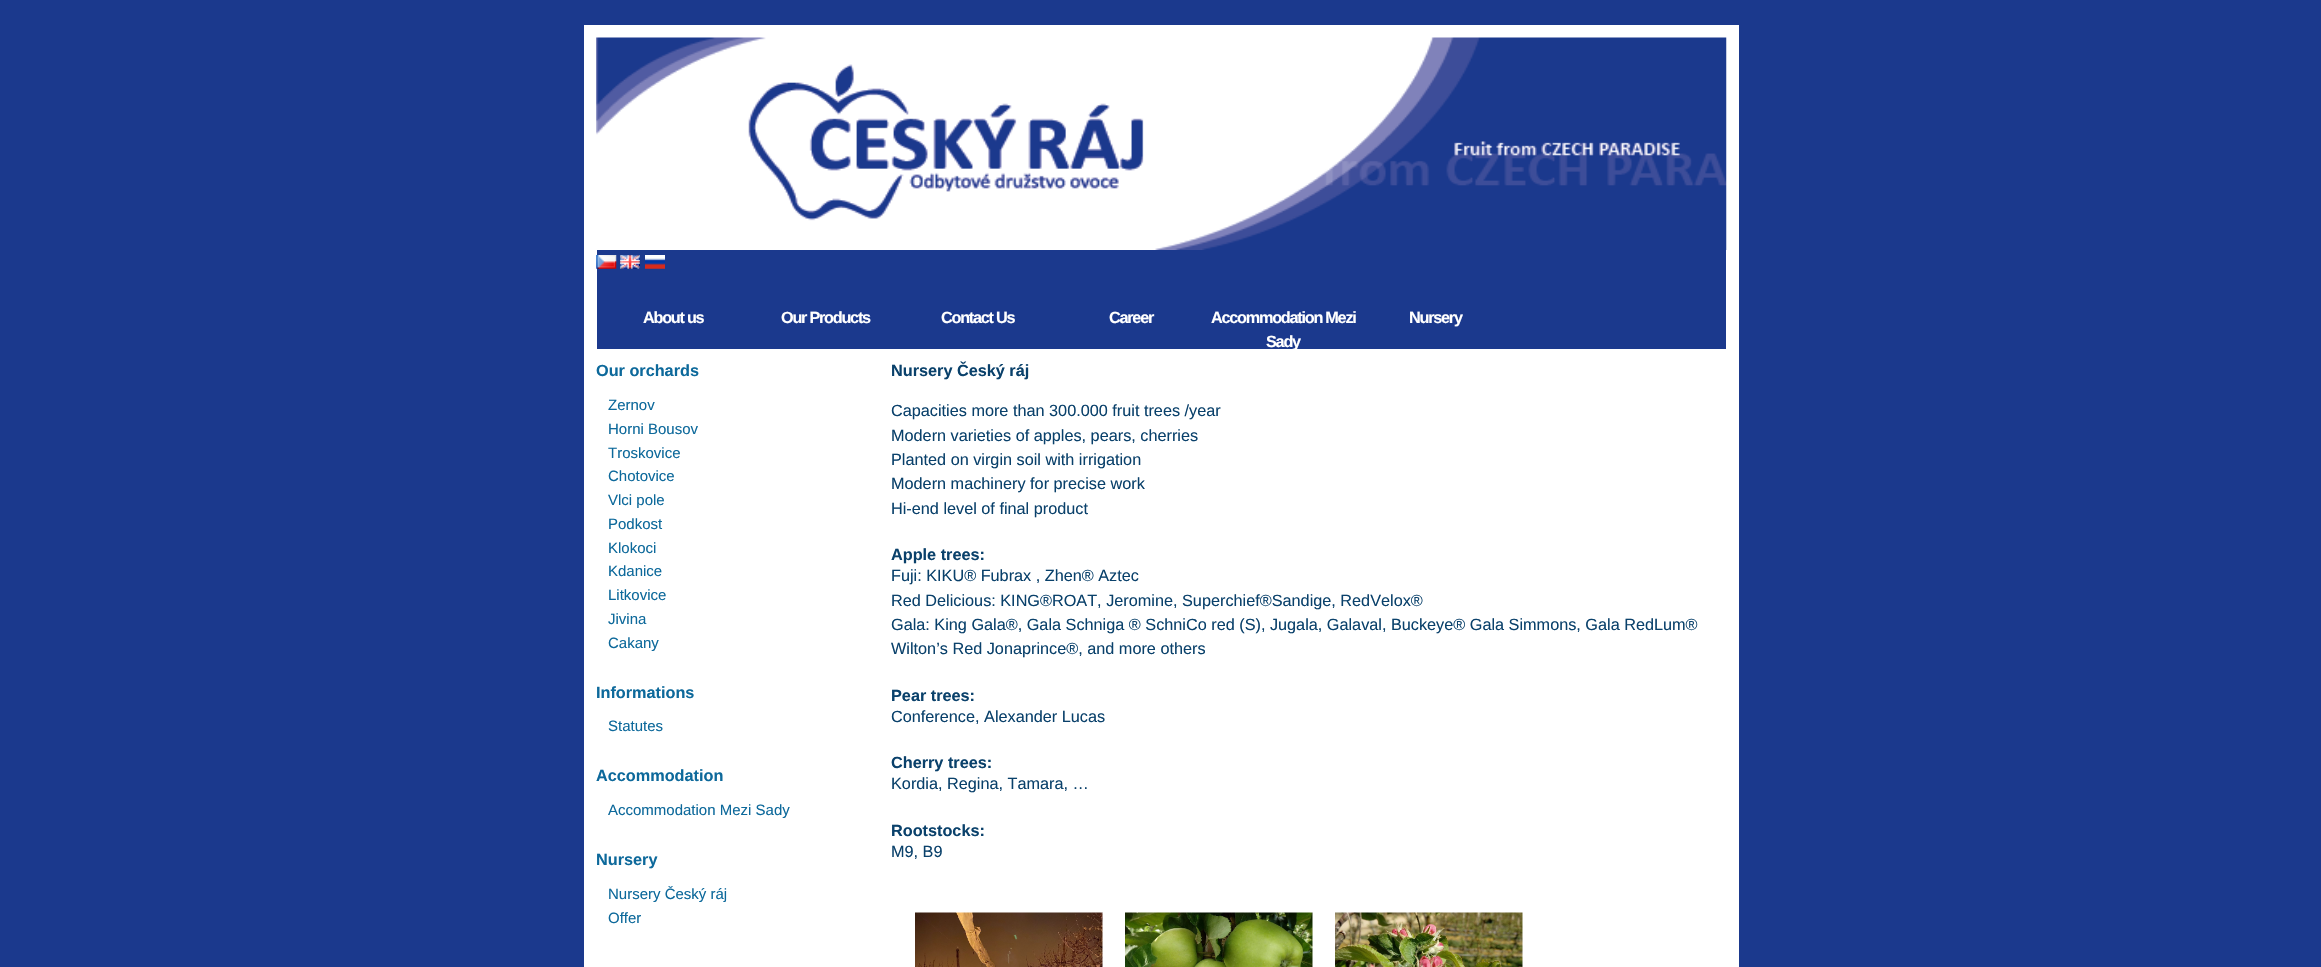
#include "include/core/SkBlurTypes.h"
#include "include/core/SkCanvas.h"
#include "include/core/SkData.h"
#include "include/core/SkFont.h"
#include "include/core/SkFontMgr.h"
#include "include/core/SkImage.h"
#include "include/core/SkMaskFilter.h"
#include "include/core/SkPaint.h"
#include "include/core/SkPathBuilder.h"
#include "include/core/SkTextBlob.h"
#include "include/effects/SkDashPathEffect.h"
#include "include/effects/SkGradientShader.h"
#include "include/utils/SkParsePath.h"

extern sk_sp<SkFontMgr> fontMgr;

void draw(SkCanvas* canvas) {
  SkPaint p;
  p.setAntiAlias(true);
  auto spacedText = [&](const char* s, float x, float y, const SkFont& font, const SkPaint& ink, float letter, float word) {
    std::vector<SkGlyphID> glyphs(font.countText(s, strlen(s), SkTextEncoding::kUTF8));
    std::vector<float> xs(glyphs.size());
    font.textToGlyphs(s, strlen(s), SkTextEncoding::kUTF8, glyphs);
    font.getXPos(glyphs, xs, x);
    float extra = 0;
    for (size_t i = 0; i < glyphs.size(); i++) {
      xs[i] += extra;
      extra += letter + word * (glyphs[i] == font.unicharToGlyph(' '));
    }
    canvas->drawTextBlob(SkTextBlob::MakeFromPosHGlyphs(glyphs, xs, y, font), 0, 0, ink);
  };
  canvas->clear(SkColorSetRGB(27, 57, 141));
  p.setStyle(SkPaint::kStroke_Style);
  p.setStrokeWidth(13);
  p.setColor(SK_ColorWHITE);
  canvas->drawRect(SkRect::MakeLTRB(590.5f, 31.5f, 1732.5f, 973.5f), p);
  canvas->drawImageRect(SkImages::DeferredFromEncodedData(SkData::MakeFromFileName("images/1.png")), SkRect::MakeLTRB(596, 37, 1727, 250), SkSamplingOptions());
  canvas->drawImageRect(SkImages::DeferredFromEncodedData(SkData::MakeFromFileName("images/2.png")), SkRect::MakeLTRB(596, 255, 617, 269), SkSamplingOptions());
  canvas->drawImageRect(SkImages::DeferredFromEncodedData(SkData::MakeFromFileName("images/3.png")), SkRect::MakeLTRB(620, 255, 640, 269), SkSamplingOptions());
  canvas->drawImageRect(SkImages::DeferredFromEncodedData(SkData::MakeFromFileName("images/4.png")), SkRect::MakeLTRB(645, 255, 665, 269), SkSamplingOptions());
  p.setStyle(SkPaint::kFill_Style);
  canvas->drawRect(SkRect::MakeLTRB(597, 349, 1726, 967), p);
  canvas->drawImageRect(SkImages::DeferredFromEncodedData(SkData::MakeFromFileName("images/5.png")), SkRect::MakeLTRB(915, 912, 1103, 967), SkSamplingOptions());
  canvas->drawImageRect(SkImages::DeferredFromEncodedData(SkData::MakeFromFileName("images/6.png")), SkRect::MakeLTRB(1125, 912, 1313, 967), SkSamplingOptions());
  canvas->drawImageRect(SkImages::DeferredFromEncodedData(SkData::MakeFromFileName("images/7.png")), SkRect::MakeLTRB(1335, 912, 1523, 967), SkSamplingOptions());
  SkFont font1(fontMgr->matchFamilyStyle("Liberation Sans", SkFontStyle::Bold()), 16.25f);
  font1.setSubpixel(true);
  spacedText("About us", 643, 323, font1, p, -1.25f, 0);
  spacedText("Our Products", 781, 323, font1, p, -1.25f, 0);
  spacedText("Contact Us", 941, 323, font1, p, -1.25f, 0);
  spacedText("Career", 1109, 323, font1, p, -1.25f, 0);
  spacedText("Accommodation Mezi", 1211, 323, font1, p, -1.25f, 0);
  spacedText("Sady", 1266, 347, font1, p, -1.25f, 0);
  spacedText("Nursery", 1409, 323, font1, p, -1.25f, 0);
  p.setColor(SkColorSetRGB(13, 105, 155));
  canvas->drawString("Our orchards", 596, 376, font1, p);
  SkFont font2(fontMgr->matchFamilyStyle("Liberation Sans", SkFontStyle::Normal()), 15);
  font2.setSubpixel(true);
  canvas->drawString("Zernov", 608, 410, font2, p);
  canvas->drawString("Horni Bousov", 608, 434, font2, p);
  canvas->drawString("Troskovice", 608, 458, font2, p);
  canvas->drawString("Chotovice", 608, 481, font2, p);
  canvas->drawString("Vlci pole", 608, 505, font2, p);
  canvas->drawString("Podkost", 608, 529, font2, p);
  canvas->drawString("Klokoci", 608, 553, font2, p);
  canvas->drawString("Kdanice", 608, 576, font2, p);
  canvas->drawString("Litkovice", 608, 600, font2, p);
  canvas->drawString("Jivina", 608, 624, font2, p);
  canvas->drawString("Cakany", 608, 648, font2, p);
  canvas->drawString("Informations", 596, 698, font1, p);
  canvas->drawString("Statutes", 608, 731, font2, p);
  canvas->drawString("Accommodation", 596, 781, font1, p);
  canvas->drawString("Accommodation Mezi Sady", 608, 815, font2, p);
  canvas->drawString("Nursery", 596, 865, font1, p);
  canvas->drawString("Nursery Český ráj", 608, 899, font2, p);
  canvas->drawString("Offer", 608, 923, font2, p);
  p.setColor(SkColorSetRGB(10, 65, 107));
  canvas->drawString("Nursery Český ráj", 891, 376, font1, p);
  SkFont font3(fontMgr->matchFamilyStyle("Liberation Sans", SkFontStyle::Normal()), 16.25f);
  font3.setSubpixel(true);
  canvas->drawString("Capacities more than 300.000 fruit trees /year", 891, 416, font3, p);
  canvas->drawString("Modern varieties of apples, pears, cherries", 891, 441, font3, p);
  canvas->drawString("Planted on virgin soil with irrigation", 891, 465, font3, p);
  canvas->drawString("Modern machinery for precise work", 891, 489, font3, p);
  canvas->drawString("Hi-end level of final product", 891, 514, font3, p);
  canvas->drawString("Apple trees:", 891, 560, font1, p);
  canvas->drawString("Fuji: KIKU® Fubrax , Zhen® Aztec", 891, 581, font3, p);
  canvas->drawString("Red Delicious: KING®ROAT, Jeromine, Superchief®Sandige, RedVelox®", 891, 606, font3, p);
  canvas->drawString("Gala: King Gala®, Gala Schniga ® SchniCo red (S), Jugala, Galaval, Buckeye® Gala Simmons, Gala RedLum®", 891, 630, font3, p);
  canvas->drawString("Wilton’s Red Jonaprince®, and more others", 891, 654, font3, p);
  canvas->drawString("Pear trees:", 891, 701, font1, p);
  canvas->drawString("Conference, Alexander Lucas", 891, 722, font3, p);
  canvas->drawString("Cherry trees:", 891, 768, font1, p);
  canvas->drawString("Kordia, Regina, Tamara, …", 891, 789, font3, p);
  canvas->drawString("Rootstocks:", 891, 836, font1, p);
  canvas->drawString("M9, B9", 891, 857, font3, p);
}
